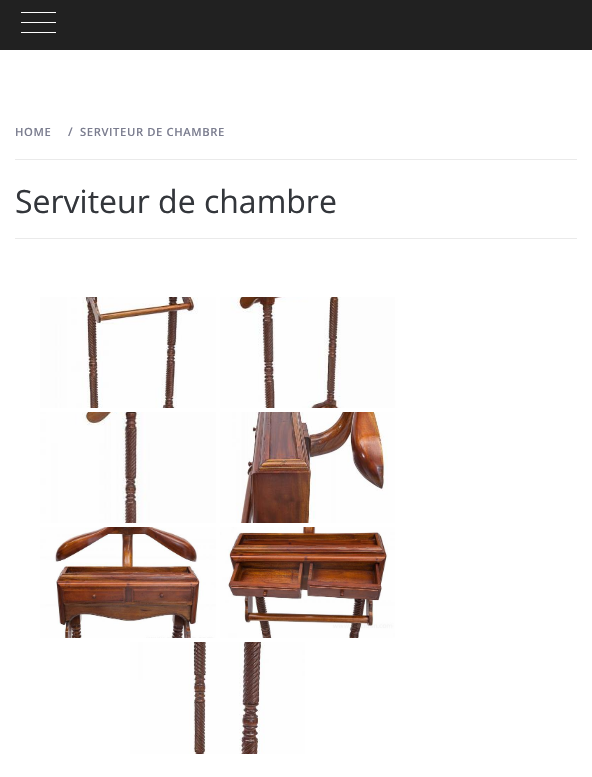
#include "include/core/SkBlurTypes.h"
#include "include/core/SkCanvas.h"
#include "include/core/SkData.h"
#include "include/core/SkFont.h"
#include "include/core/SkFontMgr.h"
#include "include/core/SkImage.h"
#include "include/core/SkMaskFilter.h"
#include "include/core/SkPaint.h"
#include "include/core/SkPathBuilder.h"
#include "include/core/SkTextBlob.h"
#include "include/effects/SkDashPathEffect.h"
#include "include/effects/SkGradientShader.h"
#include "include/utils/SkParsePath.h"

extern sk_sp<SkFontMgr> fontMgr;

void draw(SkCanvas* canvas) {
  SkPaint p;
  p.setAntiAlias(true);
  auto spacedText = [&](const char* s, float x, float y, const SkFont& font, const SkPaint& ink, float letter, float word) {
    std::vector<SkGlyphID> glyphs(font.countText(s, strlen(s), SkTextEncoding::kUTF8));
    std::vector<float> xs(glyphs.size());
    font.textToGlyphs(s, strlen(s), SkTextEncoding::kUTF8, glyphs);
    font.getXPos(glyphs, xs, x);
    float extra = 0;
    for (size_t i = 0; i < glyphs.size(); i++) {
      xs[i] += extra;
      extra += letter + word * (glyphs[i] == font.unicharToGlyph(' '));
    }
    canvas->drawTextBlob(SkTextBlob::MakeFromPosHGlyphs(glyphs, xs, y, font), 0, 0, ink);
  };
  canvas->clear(SK_ColorWHITE);
  p.setColor(SkColorSetRGB(33, 33, 33));
  canvas->drawRect(SkRect::MakeLTRB(0, 0, 592, 50), p);
  p.setColor(SK_ColorWHITE);
  canvas->drawRect(SkRect::MakeLTRB(21, 12, 56, 13), p);
  canvas->drawRect(SkRect::MakeLTRB(21, 22, 56, 23), p);
  canvas->drawRect(SkRect::MakeLTRB(21, 32, 56, 33), p);
  p.setColor(SkColorSetRGB(234, 234, 234));
  canvas->drawRect(SkRect::MakeLTRB(15, 238, 577, 239), p);
  canvas->drawRect(SkRect::MakeLTRB(15, 159, 577, 160), p);
  canvas->drawImageRect(SkImages::DeferredFromEncodedData(SkData::MakeFromFileName("images/1.png")), SkRect::MakeLTRB(40, 297, 216, 408), SkSamplingOptions());
  canvas->drawImageRect(SkImages::DeferredFromEncodedData(SkData::MakeFromFileName("images/2.png")), SkRect::MakeLTRB(220, 297, 395, 408), SkSamplingOptions());
  canvas->drawImageRect(SkImages::DeferredFromEncodedData(SkData::MakeFromFileName("images/3.png")), SkRect::MakeLTRB(40, 412, 216, 523), SkSamplingOptions());
  canvas->drawImageRect(SkImages::DeferredFromEncodedData(SkData::MakeFromFileName("images/4.png")), SkRect::MakeLTRB(220, 412, 395, 523), SkSamplingOptions());
  canvas->drawImageRect(SkImages::DeferredFromEncodedData(SkData::MakeFromFileName("images/5.png")), SkRect::MakeLTRB(40, 527, 216, 638), SkSamplingOptions());
  canvas->drawImageRect(SkImages::DeferredFromEncodedData(SkData::MakeFromFileName("images/6.png")), SkRect::MakeLTRB(220, 527, 395, 638), SkSamplingOptions());
  canvas->drawImageRect(SkImages::DeferredFromEncodedData(SkData::MakeFromFileName("images/7.png")), SkRect::MakeLTRB(130, 642, 305, 754), SkSamplingOptions());
  SkFont font1(fontMgr->matchFamilyStyle("Open Sans", SkFontStyle(600, SkFontStyle::kNormal_Width, SkFontStyle::kUpright_Slant)), 11.25f);
  font1.setSubpixel(true);
  p.setColor(SkColorSetRGB(123, 125, 143));
  spacedText("HOME", 15, 136, font1, p, 0.6f, 0);
  SkFont font2(fontMgr->matchFamilyStyle("Open Sans", SkFontStyle(600, SkFontStyle::kNormal_Width, SkFontStyle::kUpright_Slant)), 12);
  font2.setSubpixel(true);
  spacedText("/", 68, 136, font2, p, 0.6f, 0);
  spacedText("SERVITEUR DE CHAMBRE", 80, 136, font1, p, 0.6f, 0);
  SkFont font3(fontMgr->matchFamilyStyle("Open Sans", SkFontStyle::Normal()), 32);
  font3.setSubpixel(true);
  p.setColor(SkColorSetRGB(51, 54, 59));
  canvas->drawString("Serviteur de chambre", 15, 213, font3, p);
}
